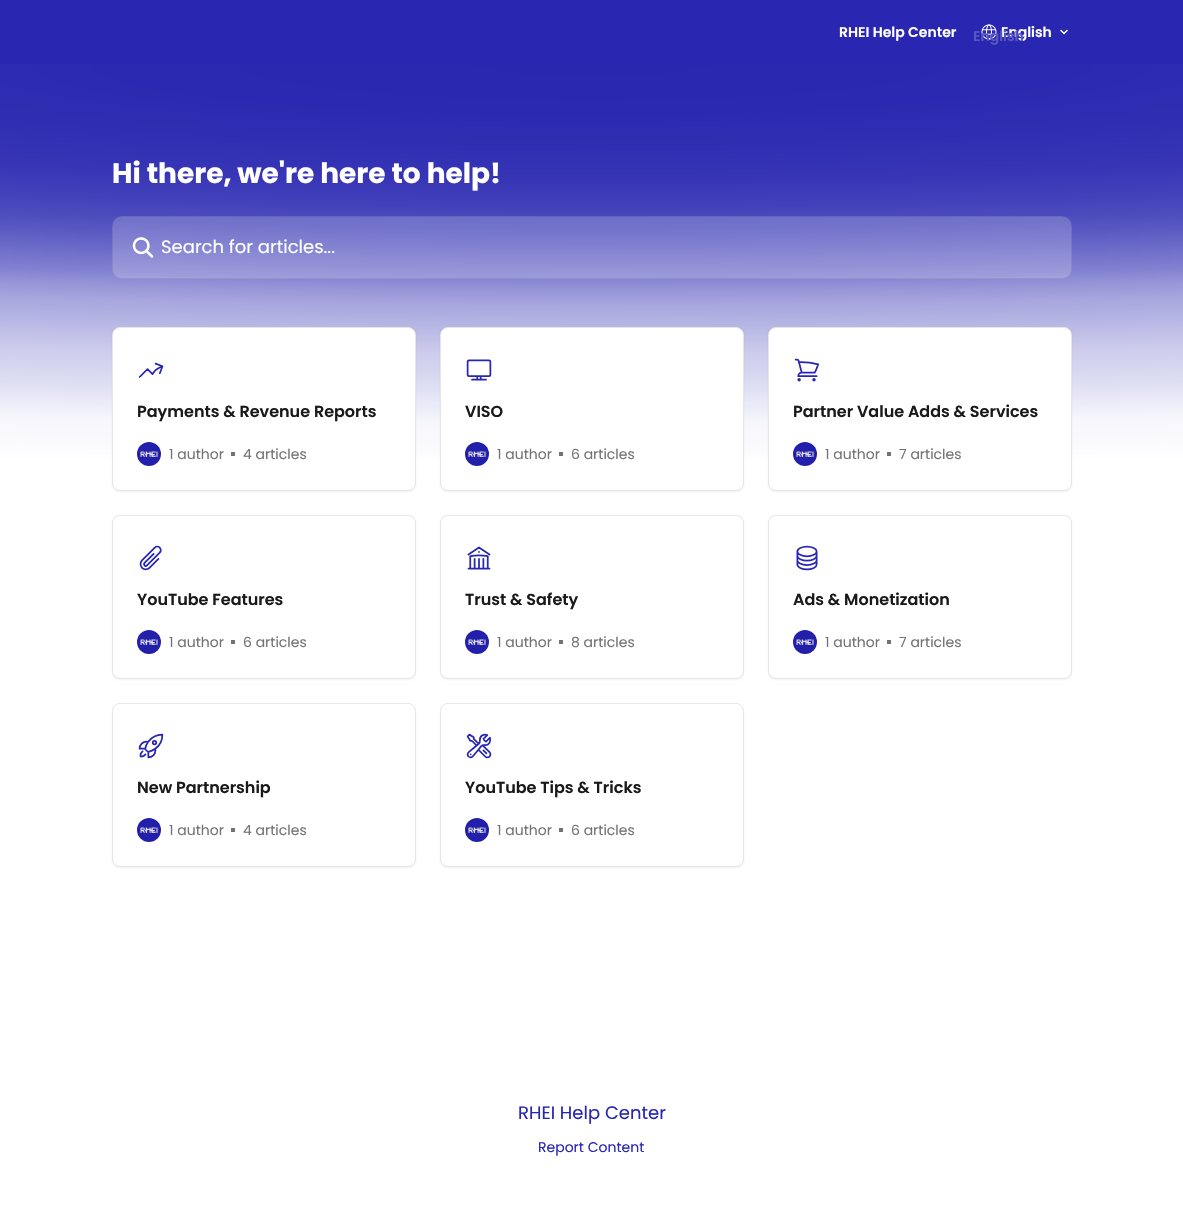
#include "include/core/SkBlurTypes.h"
#include "include/core/SkCanvas.h"
#include "include/core/SkData.h"
#include "include/core/SkFont.h"
#include "include/core/SkFontMgr.h"
#include "include/core/SkImage.h"
#include "include/core/SkMaskFilter.h"
#include "include/core/SkPaint.h"
#include "include/core/SkPathBuilder.h"
#include "include/core/SkTextBlob.h"
#include "include/effects/SkDashPathEffect.h"
#include "include/effects/SkGradientShader.h"
#include "include/utils/SkParsePath.h"

extern sk_sp<SkFontMgr> fontMgr;

void draw(SkCanvas* canvas) {
  SkPaint p;
  p.setAntiAlias(true);
  canvas->clear(SK_ColorWHITE);
  p.setColor(SkColorSetRGB(41, 39, 177));
  canvas->drawRect(SkRect::MakeLTRB(0, 0, 1183, 64), p);
  canvas->drawImageRect(SkImages::DeferredFromEncodedData(SkData::MakeFromFileName("images/1.png")), SkRect::MakeLTRB(981, 24, 997, 40), SkSamplingOptions());
  p.setStyle(SkPaint::kStroke_Style);
  p.setStrokeWidth(1.5f);
  p.setStrokeCap(SkPaint::kRound_Cap);
  p.setStrokeJoin(SkPaint::kRound_Join);
  p.setColor(SK_ColorWHITE);
  canvas->drawPath(SkPathBuilder().moveTo(1061, 30.5f).lineTo(1064, 33.5f).lineTo(1067, 30.5f).detach(), p);
  p.setStyle(SkPaint::kFill_Style);
  {
    const SkColor colors[] = {SkColorSetRGB(41, 39, 176), SkColorSetRGB(43, 41, 177), SkColorSetRGB(48, 47, 179), SkColorSetRGB(56, 54, 182), SkColorSetRGB(67, 65, 186), SkColorSetRGB(79, 78, 190), SkColorSetRGB(94, 93, 196), SkColorSetRGB(112, 110, 202), SkColorSetRGB(128, 127, 208), SkColorSetRGB(147, 146, 215), SkColorSetRGB(166, 165, 222), SkColorSetRGB(184, 184, 229), SkColorSetRGB(204, 203, 236), SkColorSetRGB(221, 221, 243), SkColorSetRGB(246, 246, 252), SK_ColorWHITE};
    const float stops[] = {0, 0.12f, 0.21f, 0.29f, 0.35f, 0.4f, 0.44f, 0.48f, 0.52f, 0.55f, 0.59f, 0.65f, 0.71f, 0.79f, 0.88f, 1};
    SkMatrix m = SkMatrix::Translate(592, 64).preScale(3944, 407);
    p.setShader(SkGradientShader::MakeRadial({0, 0}, 1, colors, stops, 16, SkTileMode::kClamp, 0, &m));
    p.setAlpha(255);
  }
  canvas->drawRect(SkRect::MakeLTRB(0, 64, 1183, 457), p);
  p.setShader(nullptr);
  p.setColor(SkColorSetARGB(51, 255, 255, 255));
  canvas->drawRoundRect(SkRect::MakeLTRB(112, 216, 1072, 279), 10, 10, p);
  p.setStyle(SkPaint::kStroke_Style);
  p.setStrokeWidth(1);
  p.setStrokeCap(SkPaint::kButt_Cap);
  p.setStrokeJoin(SkPaint::kMiter_Join);
  p.setColor(SkColorSetARGB(20, 0, 0, 0));
  canvas->drawRoundRect(SkRect::MakeLTRB(112.5f, 216.5f, 1071.5f, 278.5f), 9.5f, 9.5f, p);
  canvas->drawImageRect(SkImages::DeferredFromEncodedData(SkData::MakeFromFileName("images/2.png")), SkRect::MakeLTRB(132, 237, 154, 258), SkSamplingOptions());
  p.setStyle(SkPaint::kFill_Style);
  p.setColor(SkColorSetARGB(13, 0, 0, 0));
  p.setMaskFilter(SkMaskFilter::MakeBlur(kNormal_SkBlurStyle, 1));
  canvas->drawRoundRect(SkRect::MakeLTRB(112, 328, 416, 492), 8, 8, p);
  p.setMaskFilter(nullptr);
  p.setColor(SK_ColorWHITE);
  canvas->drawRoundRect(SkRect::MakeLTRB(112.5f, 327.5f, 415.5f, 490.5f), 7.5f, 7.5f, p);
  p.setStyle(SkPaint::kStroke_Style);
  p.setColor(SkColorSetRGB(230, 230, 230));
  canvas->drawRoundRect(SkRect::MakeLTRB(112.5f, 327.5f, 415.5f, 490.5f), 7.5f, 7.5f, p);
  canvas->drawImageRect(SkImages::DeferredFromEncodedData(SkData::MakeFromFileName("images/3.png")), SkRect::MakeLTRB(138, 362, 164, 378), SkSamplingOptions());
  canvas->drawImageRect(SkImages::DeferredFromEncodedData(SkData::MakeFromFileName("images/4.png")), SkRect::MakeLTRB(137, 442, 161, 466), SkSamplingOptions());
  p.setStyle(SkPaint::kFill_Style);
  p.setColor(SkColorSetRGB(115, 115, 115));
  canvas->drawRect(SkRect::MakeLTRB(231, 452, 235, 456), p);
  p.setColor(SkColorSetARGB(13, 0, 0, 0));
  p.setMaskFilter(SkMaskFilter::MakeBlur(kNormal_SkBlurStyle, 1));
  canvas->drawRoundRect(SkRect::MakeLTRB(440, 328, 744, 492), 8, 8, p);
  p.setMaskFilter(nullptr);
  p.setColor(SK_ColorWHITE);
  canvas->drawRoundRect(SkRect::MakeLTRB(440.5f, 327.5f, 743.5f, 490.5f), 7.5f, 7.5f, p);
  p.setStyle(SkPaint::kStroke_Style);
  p.setColor(SkColorSetRGB(230, 230, 230));
  canvas->drawRoundRect(SkRect::MakeLTRB(440.5f, 327.5f, 743.5f, 490.5f), 7.5f, 7.5f, p);
  canvas->drawImageRect(SkImages::DeferredFromEncodedData(SkData::MakeFromFileName("images/5.png")), SkRect::MakeLTRB(466, 359, 492, 381), SkSamplingOptions());
  canvas->drawImageRect(SkImages::DeferredFromEncodedData(SkData::MakeFromFileName("images/6.png")), SkRect::MakeLTRB(465, 442, 489, 466), SkSamplingOptions());
  p.setStyle(SkPaint::kFill_Style);
  p.setColor(SkColorSetRGB(115, 115, 115));
  canvas->drawRect(SkRect::MakeLTRB(559, 452, 563, 456), p);
  p.setColor(SkColorSetARGB(13, 0, 0, 0));
  p.setMaskFilter(SkMaskFilter::MakeBlur(kNormal_SkBlurStyle, 1));
  canvas->drawRoundRect(SkRect::MakeLTRB(768, 328, 1072, 492), 8, 8, p);
  p.setMaskFilter(nullptr);
  p.setColor(SK_ColorWHITE);
  canvas->drawRoundRect(SkRect::MakeLTRB(768.5f, 327.5f, 1071.5f, 490.5f), 7.5f, 7.5f, p);
  p.setStyle(SkPaint::kStroke_Style);
  p.setColor(SkColorSetRGB(230, 230, 230));
  canvas->drawRoundRect(SkRect::MakeLTRB(768.5f, 327.5f, 1071.5f, 490.5f), 7.5f, 7.5f, p);
  canvas->drawImageRect(SkImages::DeferredFromEncodedData(SkData::MakeFromFileName("images/7.png")), SkRect::MakeLTRB(794, 358, 820, 382), SkSamplingOptions());
  canvas->drawImageRect(SkImages::DeferredFromEncodedData(SkData::MakeFromFileName("images/4.png")), SkRect::MakeLTRB(793, 442, 817, 466), SkSamplingOptions());
  p.setStyle(SkPaint::kFill_Style);
  p.setColor(SkColorSetRGB(115, 115, 115));
  canvas->drawRect(SkRect::MakeLTRB(887, 452, 891, 456), p);
  p.setColor(SkColorSetARGB(13, 0, 0, 0));
  p.setMaskFilter(SkMaskFilter::MakeBlur(kNormal_SkBlurStyle, 1));
  canvas->drawRoundRect(SkRect::MakeLTRB(112, 516, 416, 680), 8, 8, p);
  p.setMaskFilter(nullptr);
  p.setColor(SK_ColorWHITE);
  canvas->drawRoundRect(SkRect::MakeLTRB(112.5f, 515.5f, 415.5f, 678.5f), 7.5f, 7.5f, p);
  p.setStyle(SkPaint::kStroke_Style);
  p.setColor(SkColorSetRGB(230, 230, 230));
  canvas->drawRoundRect(SkRect::MakeLTRB(112.5f, 515.5f, 415.5f, 678.5f), 7.5f, 7.5f, p);
  canvas->drawImageRect(SkImages::DeferredFromEncodedData(SkData::MakeFromFileName("images/8.png")), SkRect::MakeLTRB(139, 545, 162, 571), SkSamplingOptions());
  canvas->drawImageRect(SkImages::DeferredFromEncodedData(SkData::MakeFromFileName("images/4.png")), SkRect::MakeLTRB(137, 630, 161, 654), SkSamplingOptions());
  p.setStyle(SkPaint::kFill_Style);
  p.setColor(SkColorSetRGB(115, 115, 115));
  canvas->drawRect(SkRect::MakeLTRB(231, 640, 235, 644), p);
  p.setColor(SkColorSetARGB(13, 0, 0, 0));
  p.setMaskFilter(SkMaskFilter::MakeBlur(kNormal_SkBlurStyle, 1));
  canvas->drawRoundRect(SkRect::MakeLTRB(440, 516, 744, 680), 8, 8, p);
  p.setMaskFilter(nullptr);
  p.setColor(SK_ColorWHITE);
  canvas->drawRoundRect(SkRect::MakeLTRB(440.5f, 515.5f, 743.5f, 678.5f), 7.5f, 7.5f, p);
  p.setStyle(SkPaint::kStroke_Style);
  p.setColor(SkColorSetRGB(230, 230, 230));
  canvas->drawRoundRect(SkRect::MakeLTRB(440.5f, 515.5f, 743.5f, 678.5f), 7.5f, 7.5f, p);
  canvas->drawImageRect(SkImages::DeferredFromEncodedData(SkData::MakeFromFileName("images/9.png")), SkRect::MakeLTRB(467, 546, 491, 570), SkSamplingOptions());
  canvas->drawImageRect(SkImages::DeferredFromEncodedData(SkData::MakeFromFileName("images/6.png")), SkRect::MakeLTRB(465, 630, 489, 654), SkSamplingOptions());
  p.setStyle(SkPaint::kFill_Style);
  p.setColor(SkColorSetRGB(115, 115, 115));
  canvas->drawRect(SkRect::MakeLTRB(559, 640, 563, 644), p);
  p.setColor(SkColorSetARGB(13, 0, 0, 0));
  p.setMaskFilter(SkMaskFilter::MakeBlur(kNormal_SkBlurStyle, 1));
  canvas->drawRoundRect(SkRect::MakeLTRB(768, 516, 1072, 680), 8, 8, p);
  p.setMaskFilter(nullptr);
  p.setColor(SK_ColorWHITE);
  canvas->drawRoundRect(SkRect::MakeLTRB(768.5f, 515.5f, 1071.5f, 678.5f), 7.5f, 7.5f, p);
  p.setStyle(SkPaint::kStroke_Style);
  p.setColor(SkColorSetRGB(230, 230, 230));
  canvas->drawRoundRect(SkRect::MakeLTRB(768.5f, 515.5f, 1071.5f, 678.5f), 7.5f, 7.5f, p);
  canvas->drawImageRect(SkImages::DeferredFromEncodedData(SkData::MakeFromFileName("images/10.png")), SkRect::MakeLTRB(796, 545, 818, 571), SkSamplingOptions());
  canvas->drawImageRect(SkImages::DeferredFromEncodedData(SkData::MakeFromFileName("images/4.png")), SkRect::MakeLTRB(793, 630, 817, 654), SkSamplingOptions());
  p.setStyle(SkPaint::kFill_Style);
  p.setColor(SkColorSetRGB(115, 115, 115));
  canvas->drawRect(SkRect::MakeLTRB(887, 640, 891, 644), p);
  p.setColor(SkColorSetARGB(13, 0, 0, 0));
  p.setMaskFilter(SkMaskFilter::MakeBlur(kNormal_SkBlurStyle, 1));
  canvas->drawRoundRect(SkRect::MakeLTRB(112, 704, 416, 868), 8, 8, p);
  p.setMaskFilter(nullptr);
  p.setColor(SK_ColorWHITE);
  canvas->drawRoundRect(SkRect::MakeLTRB(112.5f, 703.5f, 415.5f, 866.5f), 7.5f, 7.5f, p);
  p.setStyle(SkPaint::kStroke_Style);
  p.setColor(SkColorSetRGB(230, 230, 230));
  canvas->drawRoundRect(SkRect::MakeLTRB(112.5f, 703.5f, 415.5f, 866.5f), 7.5f, 7.5f, p);
  canvas->drawImageRect(SkImages::DeferredFromEncodedData(SkData::MakeFromFileName("images/11.png")), SkRect::MakeLTRB(138, 733, 164, 759), SkSamplingOptions());
  canvas->drawImageRect(SkImages::DeferredFromEncodedData(SkData::MakeFromFileName("images/4.png")), SkRect::MakeLTRB(137, 818, 161, 842), SkSamplingOptions());
  p.setStyle(SkPaint::kFill_Style);
  p.setColor(SkColorSetRGB(115, 115, 115));
  canvas->drawRect(SkRect::MakeLTRB(231, 828, 235, 832), p);
  p.setColor(SkColorSetARGB(13, 0, 0, 0));
  p.setMaskFilter(SkMaskFilter::MakeBlur(kNormal_SkBlurStyle, 1));
  canvas->drawRoundRect(SkRect::MakeLTRB(440, 704, 744, 868), 8, 8, p);
  p.setMaskFilter(nullptr);
  p.setColor(SK_ColorWHITE);
  canvas->drawRoundRect(SkRect::MakeLTRB(440.5f, 703.5f, 743.5f, 866.5f), 7.5f, 7.5f, p);
  p.setStyle(SkPaint::kStroke_Style);
  p.setColor(SkColorSetRGB(230, 230, 230));
  canvas->drawRoundRect(SkRect::MakeLTRB(440.5f, 703.5f, 743.5f, 866.5f), 7.5f, 7.5f, p);
  canvas->drawImageRect(SkImages::DeferredFromEncodedData(SkData::MakeFromFileName("images/12.png")), SkRect::MakeLTRB(466, 733, 492, 759), SkSamplingOptions());
  canvas->drawImageRect(SkImages::DeferredFromEncodedData(SkData::MakeFromFileName("images/6.png")), SkRect::MakeLTRB(465, 818, 489, 842), SkSamplingOptions());
  p.setStyle(SkPaint::kFill_Style);
  p.setColor(SkColorSetRGB(115, 115, 115));
  canvas->drawRect(SkRect::MakeLTRB(559, 828, 563, 832), p);
  SkFont font1(fontMgr->matchFamilyStyle("Poppins", SkFontStyle(600, SkFontStyle::kNormal_Width, SkFontStyle::kUpright_Slant)), 14);
  font1.setSubpixel(true);
  p.setColor(SK_ColorWHITE);
  canvas->drawString("RHEI Help Center", 839, 37, font1, p);
  canvas->drawString("English", 1001, 37, font1, p);
  p.setColor(SkColorSetRGB(88, 87, 194));
  canvas->drawString("English", 973, 41, font1, p);
  SkFont font2(fontMgr->matchFamilyStyle("Poppins", SkFontStyle::Bold()), 28);
  font2.setSubpixel(true);
  p.setColor(SK_ColorWHITE);
  canvas->drawString("Hi there, we're here to help!", 112, 183, font2, p);
  SkFont font3(fontMgr->matchFamilyStyle("Poppins", SkFontStyle::Normal()), 18);
  font3.setSubpixel(true);
  canvas->drawString("Search for articles...", 161, 253, font3, p);
  SkFont font4(fontMgr->matchFamilyStyle("Poppins", SkFontStyle(600, SkFontStyle::kNormal_Width, SkFontStyle::kUpright_Slant)), 16);
  font4.setSubpixel(true);
  p.setColor(SkColorSetRGB(26, 26, 26));
  canvas->drawString("Payments & Revenue Reports", 137, 417, font4, p);
  SkFont font5(fontMgr->matchFamilyStyle("Poppins", SkFontStyle::Normal()), 14);
  font5.setSubpixel(true);
  p.setColor(SkColorSetRGB(115, 115, 115));
  canvas->drawString("1 author", 169, 459, font5, p);
  canvas->drawString("4 articles", 243, 459, font5, p);
  p.setColor(SkColorSetRGB(26, 26, 26));
  canvas->drawString("VISO", 465, 417, font4, p);
  p.setColor(SkColorSetRGB(115, 115, 115));
  canvas->drawString("1 author", 497, 459, font5, p);
  canvas->drawString("6 articles", 571, 459, font5, p);
  p.setColor(SkColorSetRGB(26, 26, 26));
  canvas->drawString("Partner Value Adds & Services", 793, 417, font4, p);
  p.setColor(SkColorSetRGB(115, 115, 115));
  canvas->drawString("1 author", 825, 459, font5, p);
  canvas->drawString("7 articles", 899, 459, font5, p);
  p.setColor(SkColorSetRGB(26, 26, 26));
  canvas->drawString("YouTube Features", 137, 605, font4, p);
  p.setColor(SkColorSetRGB(115, 115, 115));
  canvas->drawString("1 author", 169, 647, font5, p);
  canvas->drawString("6 articles", 243, 647, font5, p);
  p.setColor(SkColorSetRGB(26, 26, 26));
  canvas->drawString("Trust & Safety", 465, 605, font4, p);
  p.setColor(SkColorSetRGB(115, 115, 115));
  canvas->drawString("1 author", 497, 647, font5, p);
  canvas->drawString("8 articles", 571, 647, font5, p);
  p.setColor(SkColorSetRGB(26, 26, 26));
  canvas->drawString("Ads & Monetization", 793, 605, font4, p);
  p.setColor(SkColorSetRGB(115, 115, 115));
  canvas->drawString("1 author", 825, 647, font5, p);
  canvas->drawString("7 articles", 899, 647, font5, p);
  p.setColor(SkColorSetRGB(26, 26, 26));
  canvas->drawString("New Partnership", 137, 793, font4, p);
  p.setColor(SkColorSetRGB(115, 115, 115));
  canvas->drawString("1 author", 169, 835, font5, p);
  canvas->drawString("4 articles", 243, 835, font5, p);
  p.setColor(SkColorSetRGB(26, 26, 26));
  canvas->drawString("YouTube Tips & Tricks", 465, 793, font4, p);
  p.setColor(SkColorSetRGB(115, 115, 115));
  canvas->drawString("1 author", 497, 835, font5, p);
  canvas->drawString("6 articles", 571, 835, font5, p);
  p.setColor(SkColorSetRGB(41, 39, 176));
  canvas->drawString("RHEI Help Center", 518, 1119, font3, p);
  canvas->drawString("Report Content", 538, 1152, font5, p);
}
